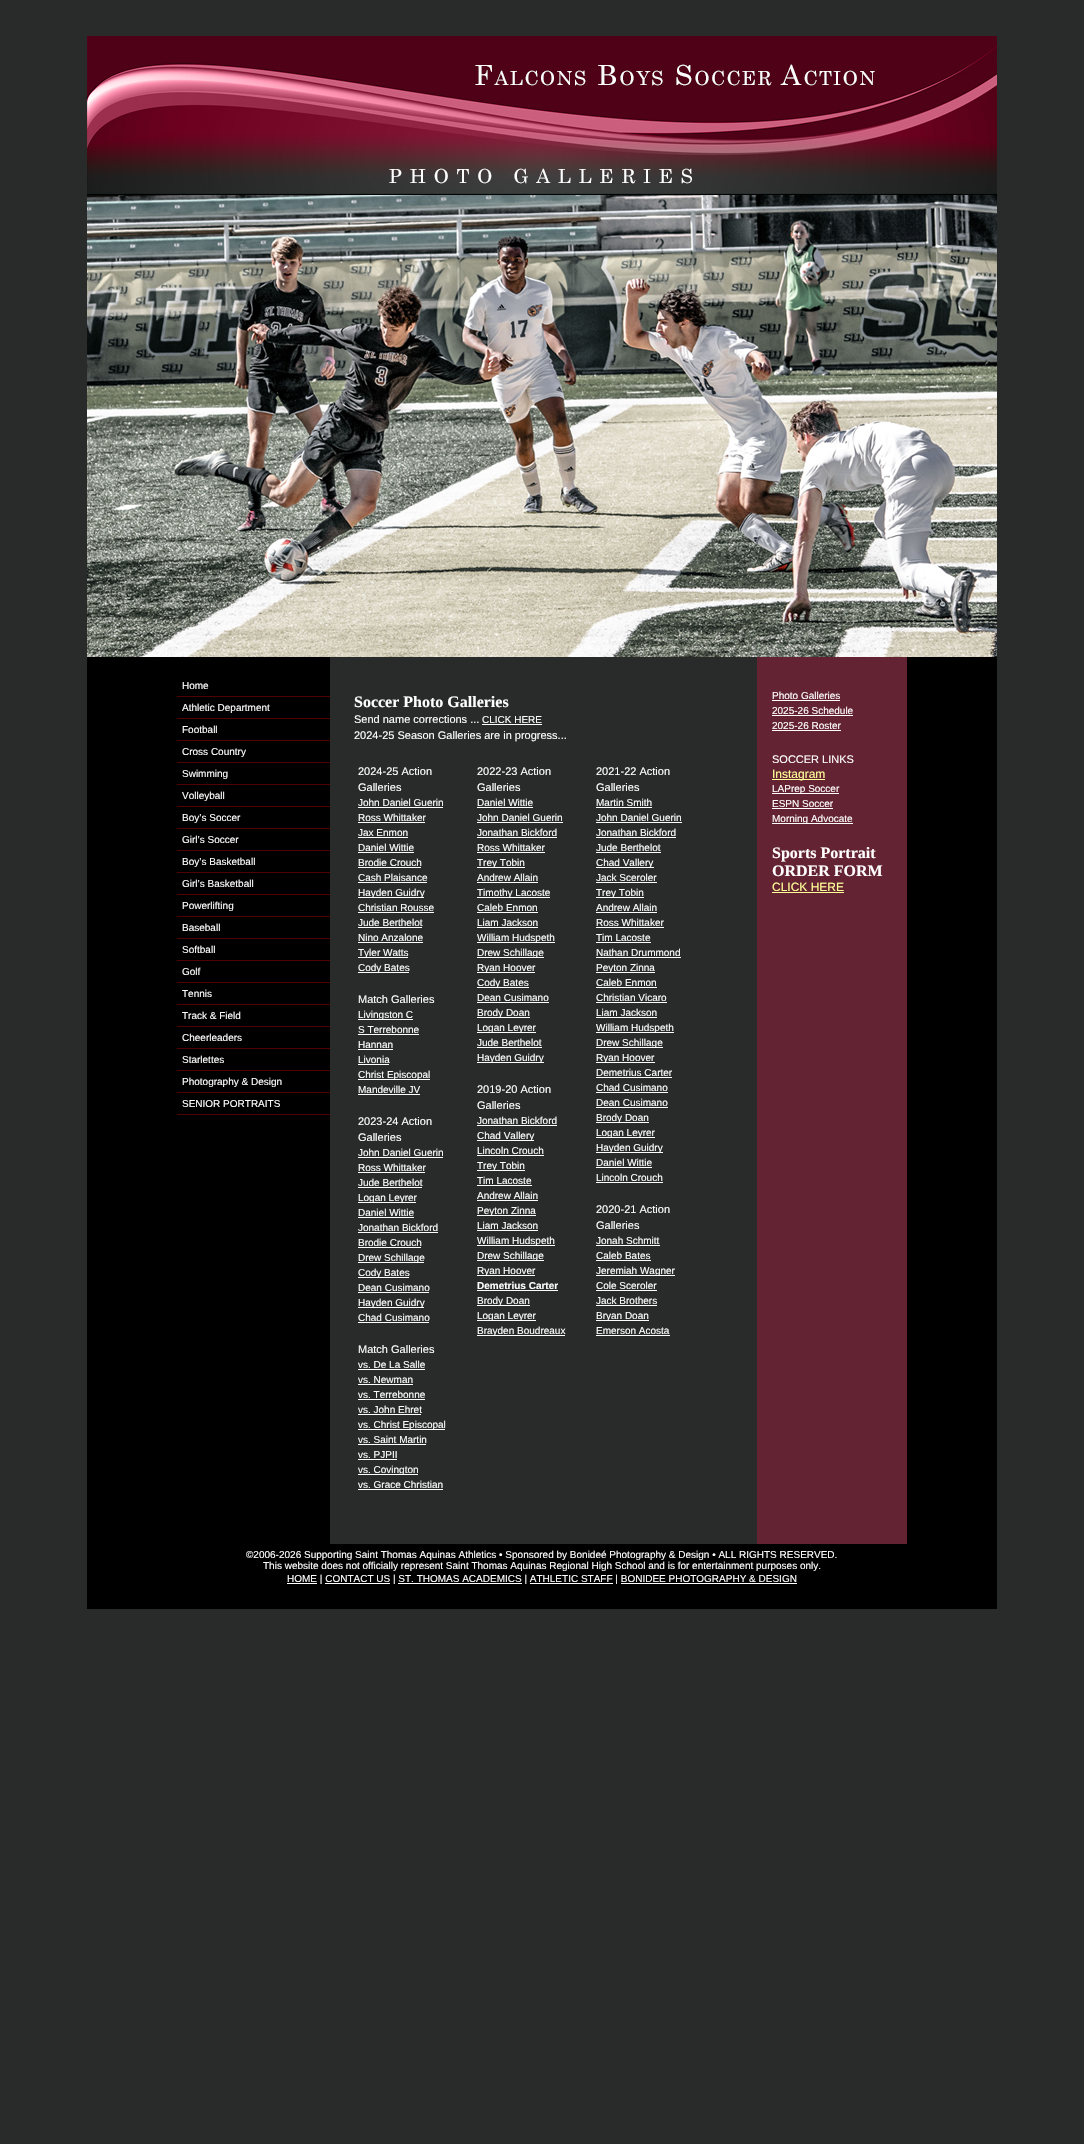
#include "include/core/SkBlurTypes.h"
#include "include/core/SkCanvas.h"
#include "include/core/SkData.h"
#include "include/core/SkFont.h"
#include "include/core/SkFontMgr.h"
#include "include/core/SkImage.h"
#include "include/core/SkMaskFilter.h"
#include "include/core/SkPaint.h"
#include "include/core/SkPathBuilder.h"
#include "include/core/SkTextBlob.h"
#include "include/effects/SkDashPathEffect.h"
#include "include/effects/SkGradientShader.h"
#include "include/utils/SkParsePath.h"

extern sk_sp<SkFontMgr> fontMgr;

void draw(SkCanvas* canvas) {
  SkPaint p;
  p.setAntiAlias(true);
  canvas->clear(SkColorSetRGB(41, 42, 42));
  canvas->drawImageRect(SkImages::DeferredFromEncodedData(SkData::MakeFromFileName("images/1.png")), SkRect::MakeLTRB(87, 36, 997, 195), SkSamplingOptions());
  canvas->drawImageRect(SkImages::DeferredFromEncodedData(SkData::MakeFromFileName("images/2.png")), SkRect::MakeLTRB(87, 195, 997, 657), SkSamplingOptions());
  p.setColor(SK_ColorBLACK);
  canvas->drawRect(SkRect::MakeLTRB(87, 657, 330, 1544), p);
  canvas->drawRect(SkRect::MakeLTRB(907, 657, 997, 1544), p);
  p.setColor(SkColorSetRGB(82, 1, 1));
  canvas->drawRect(SkRect::MakeLTRB(177, 696, 330, 697), p);
  canvas->drawRect(SkRect::MakeLTRB(177, 718, 330, 719), p);
  canvas->drawRect(SkRect::MakeLTRB(177, 740, 330, 741), p);
  canvas->drawRect(SkRect::MakeLTRB(177, 762, 330, 763), p);
  canvas->drawRect(SkRect::MakeLTRB(177, 784, 330, 785), p);
  canvas->drawRect(SkRect::MakeLTRB(177, 806, 330, 807), p);
  canvas->drawRect(SkRect::MakeLTRB(177, 828, 330, 829), p);
  canvas->drawRect(SkRect::MakeLTRB(177, 850, 330, 851), p);
  canvas->drawRect(SkRect::MakeLTRB(177, 872, 330, 873), p);
  canvas->drawRect(SkRect::MakeLTRB(177, 894, 330, 895), p);
  canvas->drawRect(SkRect::MakeLTRB(177, 916, 330, 917), p);
  canvas->drawRect(SkRect::MakeLTRB(177, 938, 330, 939), p);
  canvas->drawRect(SkRect::MakeLTRB(177, 960, 330, 961), p);
  canvas->drawRect(SkRect::MakeLTRB(177, 982, 330, 983), p);
  canvas->drawRect(SkRect::MakeLTRB(177, 1004, 330, 1005), p);
  canvas->drawRect(SkRect::MakeLTRB(177, 1026, 330, 1027), p);
  canvas->drawRect(SkRect::MakeLTRB(177, 1048, 330, 1049), p);
  canvas->drawRect(SkRect::MakeLTRB(177, 1070, 330, 1071), p);
  canvas->drawRect(SkRect::MakeLTRB(177, 1092, 330, 1093), p);
  canvas->drawRect(SkRect::MakeLTRB(177, 1114, 330, 1115), p);
  p.setColor(SK_ColorWHITE);
  canvas->drawRect(SkRect::MakeLTRB(482, 724, 542, 725), p);
  canvas->drawRect(SkRect::MakeLTRB(358, 807, 443, 808), p);
  canvas->drawRect(SkRect::MakeLTRB(358, 822, 425, 823), p);
  canvas->drawRect(SkRect::MakeLTRB(358, 837, 408, 838), p);
  canvas->drawRect(SkRect::MakeLTRB(358, 852, 414, 853), p);
  canvas->drawRect(SkRect::MakeLTRB(358, 867, 421, 868), p);
  canvas->drawRect(SkRect::MakeLTRB(358, 882, 427, 883), p);
  canvas->drawRect(SkRect::MakeLTRB(358, 897, 424, 898), p);
  canvas->drawRect(SkRect::MakeLTRB(358, 912, 434, 913), p);
  canvas->drawRect(SkRect::MakeLTRB(358, 927, 422, 928), p);
  canvas->drawRect(SkRect::MakeLTRB(358, 942, 423, 943), p);
  canvas->drawRect(SkRect::MakeLTRB(358, 957, 408, 958), p);
  canvas->drawRect(SkRect::MakeLTRB(358, 972, 409, 973), p);
  canvas->drawRect(SkRect::MakeLTRB(358, 1019, 413, 1020), p);
  canvas->drawRect(SkRect::MakeLTRB(358, 1034, 419, 1035), p);
  canvas->drawRect(SkRect::MakeLTRB(358, 1049, 393, 1050), p);
  canvas->drawRect(SkRect::MakeLTRB(358, 1064, 389, 1065), p);
  canvas->drawRect(SkRect::MakeLTRB(358, 1079, 430, 1080), p);
  canvas->drawRect(SkRect::MakeLTRB(358, 1094, 420, 1095), p);
  canvas->drawRect(SkRect::MakeLTRB(358, 1157, 443, 1158), p);
  canvas->drawRect(SkRect::MakeLTRB(358, 1172, 425, 1173), p);
  canvas->drawRect(SkRect::MakeLTRB(358, 1187, 422, 1188), p);
  canvas->drawRect(SkRect::MakeLTRB(358, 1202, 416, 1203), p);
  canvas->drawRect(SkRect::MakeLTRB(358, 1217, 414, 1218), p);
  canvas->drawRect(SkRect::MakeLTRB(358, 1232, 438, 1233), p);
  canvas->drawRect(SkRect::MakeLTRB(358, 1247, 421, 1248), p);
  canvas->drawRect(SkRect::MakeLTRB(358, 1262, 424, 1263), p);
  canvas->drawRect(SkRect::MakeLTRB(358, 1277, 409, 1278), p);
  canvas->drawRect(SkRect::MakeLTRB(358, 1292, 429, 1293), p);
  canvas->drawRect(SkRect::MakeLTRB(358, 1307, 424, 1308), p);
  canvas->drawRect(SkRect::MakeLTRB(358, 1322, 429, 1323), p);
  canvas->drawRect(SkRect::MakeLTRB(358, 1369, 425, 1370), p);
  canvas->drawRect(SkRect::MakeLTRB(358, 1384, 413, 1385), p);
  canvas->drawRect(SkRect::MakeLTRB(358, 1399, 425, 1400), p);
  canvas->drawRect(SkRect::MakeLTRB(358, 1414, 421, 1415), p);
  canvas->drawRect(SkRect::MakeLTRB(358, 1429, 445, 1430), p);
  canvas->drawRect(SkRect::MakeLTRB(358, 1444, 426, 1445), p);
  canvas->drawRect(SkRect::MakeLTRB(358, 1459, 397, 1460), p);
  canvas->drawRect(SkRect::MakeLTRB(358, 1474, 418, 1475), p);
  canvas->drawRect(SkRect::MakeLTRB(358, 1489, 443, 1490), p);
  canvas->drawRect(SkRect::MakeLTRB(477, 807, 533, 808), p);
  canvas->drawRect(SkRect::MakeLTRB(477, 822, 563, 823), p);
  canvas->drawRect(SkRect::MakeLTRB(477, 837, 557, 838), p);
  canvas->drawRect(SkRect::MakeLTRB(477, 852, 545, 853), p);
  canvas->drawRect(SkRect::MakeLTRB(477, 867, 525, 868), p);
  canvas->drawRect(SkRect::MakeLTRB(477, 882, 538, 883), p);
  canvas->drawRect(SkRect::MakeLTRB(477, 897, 550, 898), p);
  canvas->drawRect(SkRect::MakeLTRB(477, 912, 538, 913), p);
  canvas->drawRect(SkRect::MakeLTRB(477, 927, 538, 928), p);
  canvas->drawRect(SkRect::MakeLTRB(477, 942, 555, 943), p);
  canvas->drawRect(SkRect::MakeLTRB(477, 957, 544, 958), p);
  canvas->drawRect(SkRect::MakeLTRB(477, 972, 535, 973), p);
  canvas->drawRect(SkRect::MakeLTRB(477, 987, 529, 988), p);
  canvas->drawRect(SkRect::MakeLTRB(477, 1002, 549, 1003), p);
  canvas->drawRect(SkRect::MakeLTRB(477, 1017, 530, 1018), p);
  canvas->drawRect(SkRect::MakeLTRB(477, 1032, 536, 1033), p);
  canvas->drawRect(SkRect::MakeLTRB(477, 1047, 542, 1048), p);
  canvas->drawRect(SkRect::MakeLTRB(477, 1062, 544, 1063), p);
  canvas->drawRect(SkRect::MakeLTRB(477, 1125, 557, 1126), p);
  canvas->drawRect(SkRect::MakeLTRB(477, 1140, 534, 1141), p);
  canvas->drawRect(SkRect::MakeLTRB(477, 1155, 544, 1156), p);
  canvas->drawRect(SkRect::MakeLTRB(477, 1170, 525, 1171), p);
  canvas->drawRect(SkRect::MakeLTRB(477, 1185, 532, 1186), p);
  canvas->drawRect(SkRect::MakeLTRB(477, 1200, 538, 1201), p);
  canvas->drawRect(SkRect::MakeLTRB(477, 1215, 536, 1216), p);
  canvas->drawRect(SkRect::MakeLTRB(477, 1230, 538, 1231), p);
  canvas->drawRect(SkRect::MakeLTRB(477, 1245, 555, 1246), p);
  canvas->drawRect(SkRect::MakeLTRB(477, 1260, 544, 1261), p);
  canvas->drawRect(SkRect::MakeLTRB(477, 1275, 535, 1276), p);
  canvas->drawRect(SkRect::MakeLTRB(477, 1290, 558, 1291), p);
  canvas->drawRect(SkRect::MakeLTRB(477, 1305, 530, 1306), p);
  canvas->drawRect(SkRect::MakeLTRB(477, 1320, 536, 1321), p);
  canvas->drawRect(SkRect::MakeLTRB(477, 1335, 565, 1336), p);
  canvas->drawRect(SkRect::MakeLTRB(596, 807, 652, 808), p);
  canvas->drawRect(SkRect::MakeLTRB(596, 822, 682, 823), p);
  canvas->drawRect(SkRect::MakeLTRB(596, 837, 676, 838), p);
  canvas->drawRect(SkRect::MakeLTRB(596, 852, 661, 853), p);
  canvas->drawRect(SkRect::MakeLTRB(596, 867, 654, 868), p);
  canvas->drawRect(SkRect::MakeLTRB(596, 882, 657, 883), p);
  canvas->drawRect(SkRect::MakeLTRB(596, 897, 644, 898), p);
  canvas->drawRect(SkRect::MakeLTRB(596, 912, 657, 913), p);
  canvas->drawRect(SkRect::MakeLTRB(596, 927, 664, 928), p);
  canvas->drawRect(SkRect::MakeLTRB(596, 942, 651, 943), p);
  canvas->drawRect(SkRect::MakeLTRB(596, 957, 681, 958), p);
  canvas->drawRect(SkRect::MakeLTRB(596, 972, 655, 973), p);
  canvas->drawRect(SkRect::MakeLTRB(596, 987, 657, 988), p);
  canvas->drawRect(SkRect::MakeLTRB(596, 1002, 667, 1003), p);
  canvas->drawRect(SkRect::MakeLTRB(596, 1017, 657, 1018), p);
  canvas->drawRect(SkRect::MakeLTRB(596, 1032, 674, 1033), p);
  canvas->drawRect(SkRect::MakeLTRB(596, 1047, 663, 1048), p);
  canvas->drawRect(SkRect::MakeLTRB(596, 1062, 655, 1063), p);
  canvas->drawRect(SkRect::MakeLTRB(596, 1077, 672, 1078), p);
  canvas->drawRect(SkRect::MakeLTRB(596, 1092, 668, 1093), p);
  canvas->drawRect(SkRect::MakeLTRB(596, 1107, 668, 1108), p);
  canvas->drawRect(SkRect::MakeLTRB(596, 1122, 649, 1123), p);
  canvas->drawRect(SkRect::MakeLTRB(596, 1137, 655, 1138), p);
  canvas->drawRect(SkRect::MakeLTRB(596, 1152, 663, 1153), p);
  canvas->drawRect(SkRect::MakeLTRB(596, 1167, 652, 1168), p);
  canvas->drawRect(SkRect::MakeLTRB(596, 1182, 663, 1183), p);
  canvas->drawRect(SkRect::MakeLTRB(596, 1245, 660, 1246), p);
  canvas->drawRect(SkRect::MakeLTRB(596, 1260, 651, 1261), p);
  canvas->drawRect(SkRect::MakeLTRB(596, 1275, 675, 1276), p);
  canvas->drawRect(SkRect::MakeLTRB(596, 1290, 657, 1291), p);
  canvas->drawRect(SkRect::MakeLTRB(596, 1305, 657, 1306), p);
  canvas->drawRect(SkRect::MakeLTRB(596, 1320, 649, 1321), p);
  canvas->drawRect(SkRect::MakeLTRB(596, 1335, 670, 1336), p);
  p.setColor(SkColorSetRGB(99, 35, 50));
  canvas->drawRect(SkRect::MakeLTRB(757, 657, 907, 1544), p);
  p.setColor(SK_ColorWHITE);
  canvas->drawRect(SkRect::MakeLTRB(772, 700, 840, 701), p);
  canvas->drawRect(SkRect::MakeLTRB(772, 715, 853, 716), p);
  canvas->drawRect(SkRect::MakeLTRB(772, 730, 841, 731), p);
  p.setColor(SkColorSetRGB(255, 255, 153));
  canvas->drawRect(SkRect::MakeLTRB(772, 779, 825, 780), p);
  p.setColor(SK_ColorWHITE);
  canvas->drawRect(SkRect::MakeLTRB(772, 793, 839, 794), p);
  canvas->drawRect(SkRect::MakeLTRB(772, 808, 833, 809), p);
  canvas->drawRect(SkRect::MakeLTRB(772, 823, 853, 824), p);
  p.setColor(SkColorSetRGB(255, 255, 153));
  canvas->drawRect(SkRect::MakeLTRB(772, 892, 844, 893), p);
  p.setColor(SK_ColorBLACK);
  canvas->drawRect(SkRect::MakeLTRB(87, 1544, 997, 1609), p);
  p.setColor(SK_ColorWHITE);
  canvas->drawRect(SkRect::MakeLTRB(287, 1583, 317, 1584), p);
  canvas->drawRect(SkRect::MakeLTRB(325, 1583, 390, 1584), p);
  canvas->drawRect(SkRect::MakeLTRB(398, 1583, 522, 1584), p);
  canvas->drawRect(SkRect::MakeLTRB(530, 1583, 613, 1584), p);
  canvas->drawRect(SkRect::MakeLTRB(621, 1583, 797, 1584), p);
  SkFont font1(fontMgr->matchFamilyStyle("Liberation Sans", SkFontStyle::Normal()), 10);
  font1.setSubpixel(true);
  canvas->drawString("Home", 182, 689, font1, p);
  canvas->drawString("Athletic Department", 182, 711, font1, p);
  canvas->drawString("Football", 182, 733, font1, p);
  canvas->drawString("Cross Country", 182, 755, font1, p);
  canvas->drawString("Swimming", 182, 777, font1, p);
  canvas->drawString("Volleyball", 182, 799, font1, p);
  canvas->drawString("Boy’s Soccer", 182, 821, font1, p);
  canvas->drawString("Girl’s Soccer", 182, 843, font1, p);
  canvas->drawString("Boy’s Basketball", 182, 865, font1, p);
  canvas->drawString("Girl’s Basketball", 182, 887, font1, p);
  canvas->drawString("Powerlifting", 182, 909, font1, p);
  canvas->drawString("Baseball", 182, 931, font1, p);
  canvas->drawString("Softball", 182, 953, font1, p);
  canvas->drawString("Golf", 182, 975, font1, p);
  canvas->drawString("Tennis", 182, 997, font1, p);
  canvas->drawString("Track & Field", 182, 1019, font1, p);
  canvas->drawString("Cheerleaders", 182, 1041, font1, p);
  canvas->drawString("Starlettes", 182, 1063, font1, p);
  canvas->drawString("Photography & Design", 182, 1085, font1, p);
  canvas->drawString("SENIOR PORTRAITS", 182, 1107, font1, p);
  SkFont font2(fontMgr->matchFamilyStyle("Liberation Serif", SkFontStyle::Bold()), 16);
  font2.setSubpixel(true);
  canvas->drawString("Soccer Photo Galleries", 354, 707, font2, p);
  SkFont font3(fontMgr->matchFamilyStyle("Liberation Sans", SkFontStyle::Normal()), 11);
  font3.setSubpixel(true);
  canvas->drawString("Send name corrections ...", 354, 723, font3, p);
  canvas->drawString("CLICK HERE", 482, 723, font1, p);
  canvas->drawString("2024-25 Season Galleries are in progress...", 354, 739, font3, p);
  canvas->drawString("2024-25 Action", 358, 775, font3, p);
  canvas->drawString("Galleries", 358, 791, font3, p);
  canvas->drawString("John Daniel Guerin", 358, 806, font1, p);
  canvas->drawString("Ross Whittaker", 358, 821, font1, p);
  canvas->drawString("Jax Enmon", 358, 836, font1, p);
  canvas->drawString("Daniel Wittie", 358, 851, font1, p);
  canvas->drawString("Brodie Crouch", 358, 866, font1, p);
  canvas->drawString("Cash Plaisance", 358, 881, font1, p);
  canvas->drawString("Hayden Guidry", 358, 896, font1, p);
  canvas->drawString("Christian Rousse", 358, 911, font1, p);
  canvas->drawString("Jude Berthelot", 358, 926, font1, p);
  canvas->drawString("Nino Anzalone", 358, 941, font1, p);
  canvas->drawString("Tyler Watts", 358, 956, font1, p);
  canvas->drawString("Cody Bates", 358, 971, font1, p);
  canvas->drawString("Match Galleries", 358, 1003, font3, p);
  canvas->drawString("Livingston C", 358, 1018, font1, p);
  canvas->drawString("S Terrebonne", 358, 1033, font1, p);
  canvas->drawString("Hannan", 358, 1048, font1, p);
  canvas->drawString("Livonia", 358, 1063, font1, p);
  canvas->drawString("Christ Episcopal", 358, 1078, font1, p);
  canvas->drawString("Mandeville JV", 358, 1093, font1, p);
  canvas->drawString("2023-24 Action", 358, 1125, font3, p);
  canvas->drawString("Galleries", 358, 1141, font3, p);
  canvas->drawString("John Daniel Guerin", 358, 1156, font1, p);
  canvas->drawString("Ross Whittaker", 358, 1171, font1, p);
  canvas->drawString("Jude Berthelot", 358, 1186, font1, p);
  canvas->drawString("Logan Leyrer", 358, 1201, font1, p);
  canvas->drawString("Daniel Wittie", 358, 1216, font1, p);
  canvas->drawString("Jonathan Bickford", 358, 1231, font1, p);
  canvas->drawString("Brodie Crouch", 358, 1246, font1, p);
  canvas->drawString("Drew Schillage", 358, 1261, font1, p);
  canvas->drawString("Cody Bates", 358, 1276, font1, p);
  canvas->drawString("Dean Cusimano", 358, 1291, font1, p);
  canvas->drawString("Hayden Guidry", 358, 1306, font1, p);
  canvas->drawString("Chad Cusimano", 358, 1321, font1, p);
  canvas->drawString("Match Galleries", 358, 1353, font3, p);
  canvas->drawString("vs. De La Salle", 358, 1368, font1, p);
  canvas->drawString("vs. Newman", 358, 1383, font1, p);
  canvas->drawString("vs. Terrebonne", 358, 1398, font1, p);
  canvas->drawString("vs. John Ehret", 358, 1413, font1, p);
  canvas->drawString("vs. Christ Episcopal", 358, 1428, font1, p);
  canvas->drawString("vs. Saint Martin", 358, 1443, font1, p);
  canvas->drawString("vs. PJPII", 358, 1458, font1, p);
  canvas->drawString("vs. Covington", 358, 1473, font1, p);
  canvas->drawString("vs. Grace Christian", 358, 1488, font1, p);
  canvas->drawString("2022-23 Action", 477, 775, font3, p);
  canvas->drawString("Galleries", 477, 791, font3, p);
  canvas->drawString("Daniel Wittie", 477, 806, font1, p);
  canvas->drawString("John Daniel Guerin", 477, 821, font1, p);
  canvas->drawString("Jonathan Bickford", 477, 836, font1, p);
  canvas->drawString("Ross Whittaker", 477, 851, font1, p);
  canvas->drawString("Trey Tobin", 477, 866, font1, p);
  canvas->drawString("Andrew Allain", 477, 881, font1, p);
  canvas->drawString("Timothy Lacoste", 477, 896, font1, p);
  canvas->drawString("Caleb Enmon", 477, 911, font1, p);
  canvas->drawString("Liam Jackson", 477, 926, font1, p);
  canvas->drawString("William Hudspeth", 477, 941, font1, p);
  canvas->drawString("Drew Schillage", 477, 956, font1, p);
  canvas->drawString("Ryan Hoover", 477, 971, font1, p);
  canvas->drawString("Cody Bates", 477, 986, font1, p);
  canvas->drawString("Dean Cusimano", 477, 1001, font1, p);
  canvas->drawString("Brody Doan", 477, 1016, font1, p);
  canvas->drawString("Logan Leyrer", 477, 1031, font1, p);
  canvas->drawString("Jude Berthelot", 477, 1046, font1, p);
  canvas->drawString("Hayden Guidry", 477, 1061, font1, p);
  canvas->drawString("2019-20 Action", 477, 1093, font3, p);
  canvas->drawString("Galleries", 477, 1109, font3, p);
  canvas->drawString("Jonathan Bickford", 477, 1124, font1, p);
  canvas->drawString("Chad Vallery", 477, 1139, font1, p);
  canvas->drawString("Lincoln Crouch", 477, 1154, font1, p);
  canvas->drawString("Trey Tobin", 477, 1169, font1, p);
  canvas->drawString("Tim Lacoste", 477, 1184, font1, p);
  canvas->drawString("Andrew Allain", 477, 1199, font1, p);
  canvas->drawString("Peyton Zinna", 477, 1214, font1, p);
  canvas->drawString("Liam Jackson", 477, 1229, font1, p);
  canvas->drawString("William Hudspeth", 477, 1244, font1, p);
  canvas->drawString("Drew Schillage", 477, 1259, font1, p);
  canvas->drawString("Ryan Hoover", 477, 1274, font1, p);
  SkFont font4(fontMgr->matchFamilyStyle("Liberation Sans", SkFontStyle::Bold()), 10);
  font4.setSubpixel(true);
  canvas->drawString("Demetrius Carter", 477, 1289, font4, p);
  canvas->drawString("Brody Doan", 477, 1304, font1, p);
  canvas->drawString("Logan Leyrer", 477, 1319, font1, p);
  canvas->drawString("Brayden Boudreaux", 477, 1334, font1, p);
  canvas->drawString("2021-22 Action", 596, 775, font3, p);
  canvas->drawString("Galleries", 596, 791, font3, p);
  canvas->drawString("Martin Smith", 596, 806, font1, p);
  canvas->drawString("John Daniel Guerin", 596, 821, font1, p);
  canvas->drawString("Jonathan Bickford", 596, 836, font1, p);
  canvas->drawString("Jude Berthelot", 596, 851, font1, p);
  canvas->drawString("Chad Vallery", 596, 866, font1, p);
  canvas->drawString("Jack Sceroler", 596, 881, font1, p);
  canvas->drawString("Trey Tobin", 596, 896, font1, p);
  canvas->drawString("Andrew Allain", 596, 911, font1, p);
  canvas->drawString("Ross Whittaker", 596, 926, font1, p);
  canvas->drawString("Tim Lacoste", 596, 941, font1, p);
  canvas->drawString("Nathan Drummond", 596, 956, font1, p);
  canvas->drawString("Peyton Zinna", 596, 971, font1, p);
  canvas->drawString("Caleb Enmon", 596, 986, font1, p);
  canvas->drawString("Christian Vicaro", 596, 1001, font1, p);
  canvas->drawString("Liam Jackson", 596, 1016, font1, p);
  canvas->drawString("William Hudspeth", 596, 1031, font1, p);
  canvas->drawString("Drew Schillage", 596, 1046, font1, p);
  canvas->drawString("Ryan Hoover", 596, 1061, font1, p);
  canvas->drawString("Demetrius Carter", 596, 1076, font1, p);
  canvas->drawString("Chad Cusimano", 596, 1091, font1, p);
  canvas->drawString("Dean Cusimano", 596, 1106, font1, p);
  canvas->drawString("Brody Doan", 596, 1121, font1, p);
  canvas->drawString("Logan Leyrer", 596, 1136, font1, p);
  canvas->drawString("Hayden Guidry", 596, 1151, font1, p);
  canvas->drawString("Daniel Wittie", 596, 1166, font1, p);
  canvas->drawString("Lincoln Crouch", 596, 1181, font1, p);
  canvas->drawString("2020-21 Action", 596, 1213, font3, p);
  canvas->drawString("Galleries", 596, 1229, font3, p);
  canvas->drawString("Jonah Schmitt", 596, 1244, font1, p);
  canvas->drawString("Caleb Bates", 596, 1259, font1, p);
  canvas->drawString("Jeremiah Wagner", 596, 1274, font1, p);
  canvas->drawString("Cole Sceroler", 596, 1289, font1, p);
  canvas->drawString("Jack Brothers", 596, 1304, font1, p);
  canvas->drawString("Bryan Doan", 596, 1319, font1, p);
  canvas->drawString("Emerson Acosta", 596, 1334, font1, p);
  canvas->drawString("Photo Galleries", 772, 699, font1, p);
  canvas->drawString("2025-26 Schedule", 772, 714, font1, p);
  canvas->drawString("2025-26 Roster", 772, 729, font1, p);
  canvas->drawString("SOCCER LINKS", 772, 763, font3, p);
  SkFont font5(fontMgr->matchFamilyStyle("Liberation Sans", SkFontStyle::Normal()), 12);
  font5.setSubpixel(true);
  p.setColor(SkColorSetRGB(255, 255, 153));
  canvas->drawString("Instagram", 772, 778, font5, p);
  p.setColor(SK_ColorWHITE);
  canvas->drawString("LAPrep Soccer", 772, 792, font1, p);
  canvas->drawString("ESPN Soccer", 772, 807, font1, p);
  canvas->drawString("Morning Advocate", 772, 822, font1, p);
  canvas->drawString("Sports Portrait", 772, 858, font2, p);
  canvas->drawString("ORDER FORM", 772, 876, font2, p);
  p.setColor(SkColorSetRGB(255, 255, 153));
  canvas->drawString("CLICK HERE", 772, 891, font5, p);
  p.setColor(SK_ColorWHITE);
  canvas->drawString("©2006-2026 Supporting Saint Thomas Aquinas Athletics • Sponsored by Bonideé Photography & Design • ALL RIGHTS RESERVED.", 246, 1558, font1, p);
  canvas->drawString("This website does not officially represent Saint Thomas Aquinas Regional High School and is for entertainment purposes only.", 263, 1569, font1, p);
  canvas->drawString("HOME | CONTACT US | ST. THOMAS ACADEMICS | ATHLETIC STAFF | BONIDEE PHOTOGRAPHY & DESIGN", 287, 1582, font1, p);
}
